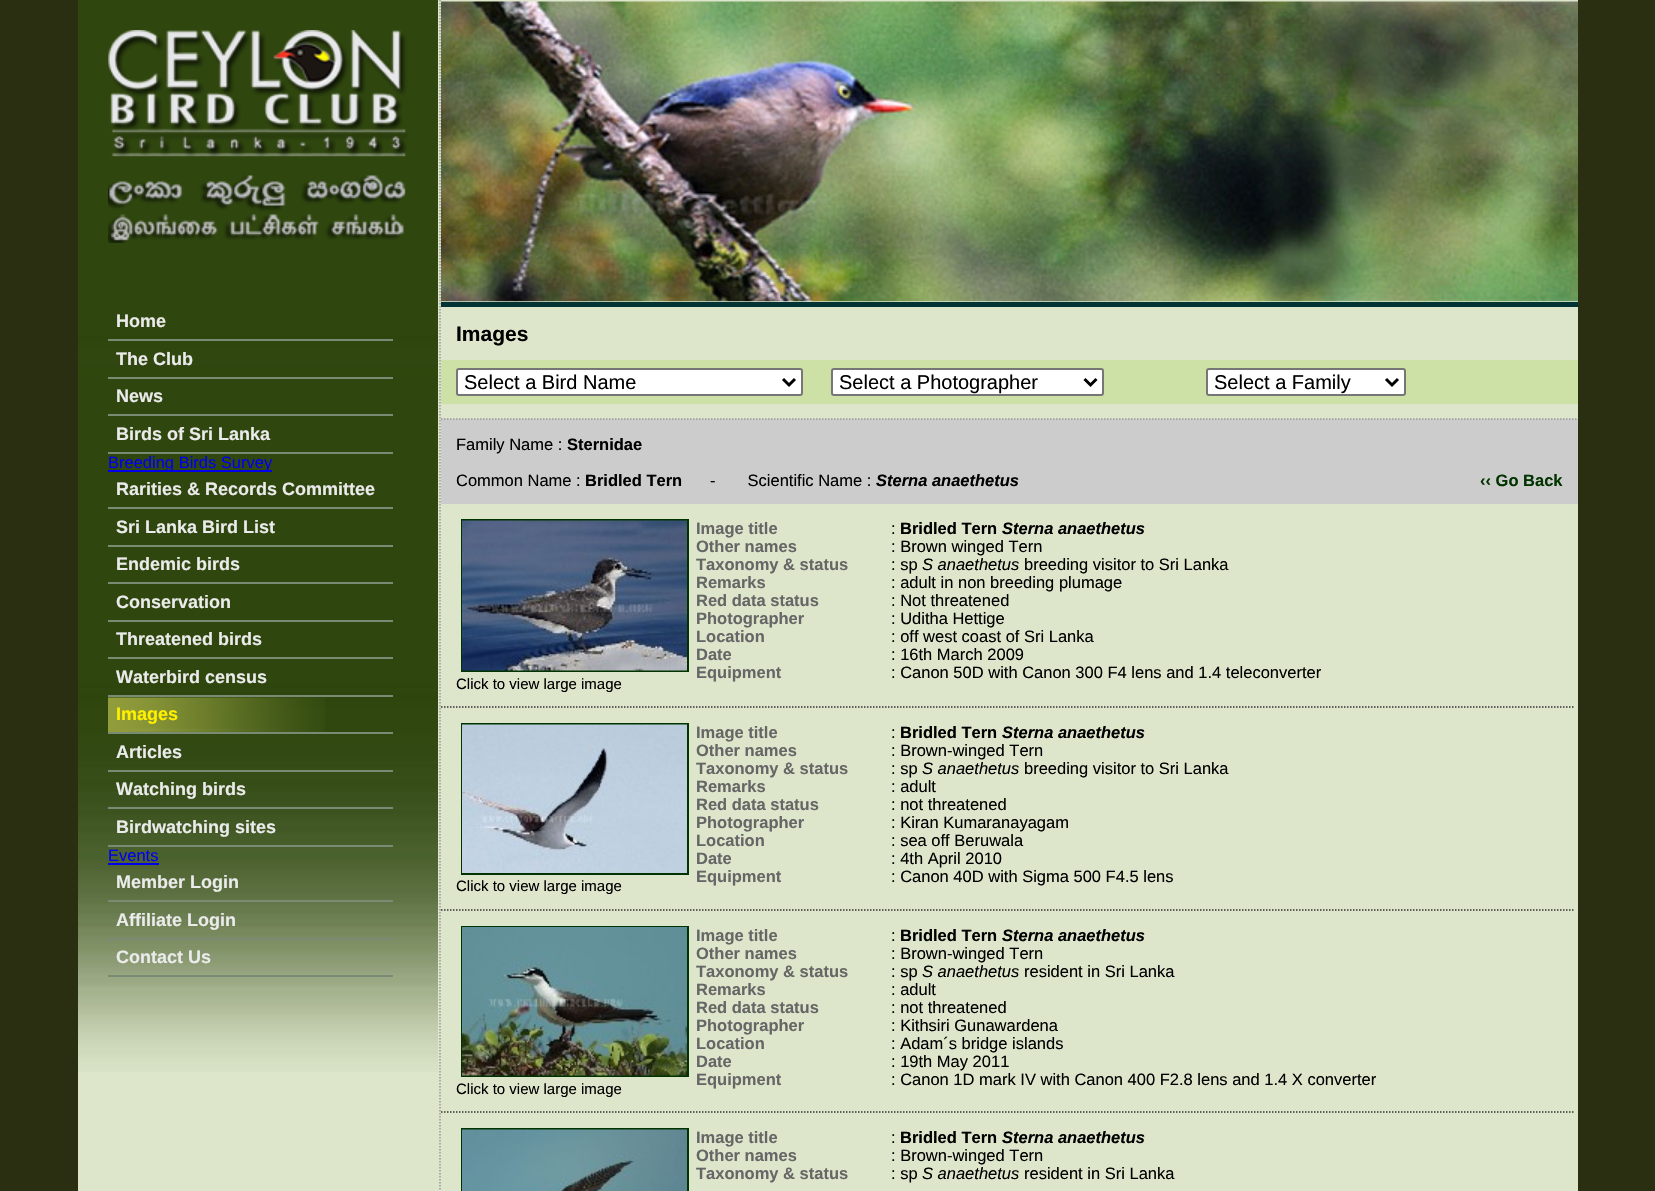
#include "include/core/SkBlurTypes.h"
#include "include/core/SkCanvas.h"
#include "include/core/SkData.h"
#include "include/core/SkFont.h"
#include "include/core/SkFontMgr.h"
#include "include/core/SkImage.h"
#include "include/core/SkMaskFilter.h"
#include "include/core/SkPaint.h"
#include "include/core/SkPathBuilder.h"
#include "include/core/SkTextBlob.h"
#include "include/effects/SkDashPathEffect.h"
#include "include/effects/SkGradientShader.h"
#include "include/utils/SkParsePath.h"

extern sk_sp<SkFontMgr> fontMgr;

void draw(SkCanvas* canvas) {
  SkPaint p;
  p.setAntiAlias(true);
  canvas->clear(SkColorSetRGB(42, 47, 17));
  p.setColor(SkColorSetRGB(221, 230, 203));
  canvas->drawRect(SkRect::MakeLTRB(78, 0, 1578, 1191), p);
  canvas->drawImageRect(SkImages::DeferredFromEncodedData(SkData::MakeFromFileName("images/1.png")), SkRect::MakeLTRB(78, 0, 438, 1072), SkSamplingOptions());
  canvas->drawImageRect(SkImages::DeferredFromEncodedData(SkData::MakeFromFileName("images/2.png")), SkRect::MakeLTRB(108, 30, 408, 243), SkSamplingOptions());
  p.setColor(SkColorSetRGB(121, 138, 117));
  canvas->drawRect(SkRect::MakeLTRB(108, 339, 393, 341), p);
  canvas->drawRect(SkRect::MakeLTRB(108, 377, 393, 379), p);
  canvas->drawRect(SkRect::MakeLTRB(108, 414, 393, 416), p);
  canvas->drawRect(SkRect::MakeLTRB(108, 452, 393, 454), p);
  p.setColor(SkColorSetRGB(0, 0, 238));
  canvas->drawRect(SkRect::MakeLTRB(108, 470, 272, 472), p);
  p.setColor(SkColorSetRGB(121, 138, 117));
  canvas->drawRect(SkRect::MakeLTRB(108, 507, 393, 509), p);
  canvas->drawRect(SkRect::MakeLTRB(108, 545, 393, 547), p);
  canvas->drawRect(SkRect::MakeLTRB(108, 582, 393, 584), p);
  canvas->drawRect(SkRect::MakeLTRB(108, 620, 393, 622), p);
  canvas->drawRect(SkRect::MakeLTRB(108, 657, 393, 659), p);
  canvas->drawRect(SkRect::MakeLTRB(108, 695, 393, 697), p);
  canvas->drawRect(SkRect::MakeLTRB(108, 732, 393, 734), p);
  canvas->drawImageRect(SkImages::DeferredFromEncodedData(SkData::MakeFromFileName("images/3.png")), SkRect::MakeLTRB(108, 697, 325, 732), SkSamplingOptions());
  canvas->drawRect(SkRect::MakeLTRB(108, 770, 393, 772), p);
  canvas->drawRect(SkRect::MakeLTRB(108, 807, 393, 809), p);
  canvas->drawRect(SkRect::MakeLTRB(108, 845, 393, 847), p);
  p.setColor(SkColorSetRGB(0, 0, 238));
  canvas->drawRect(SkRect::MakeLTRB(108, 863, 159, 865), p);
  p.setColor(SkColorSetRGB(121, 138, 117));
  canvas->drawRect(SkRect::MakeLTRB(108, 900, 393, 902), p);
  canvas->drawRect(SkRect::MakeLTRB(108, 938, 393, 940), p);
  canvas->drawRect(SkRect::MakeLTRB(108, 975, 393, 977), p);
  p.setStyle(SkPaint::kStroke_Style);
  p.setStrokeWidth(1.5f);
  p.setColor(SkColorSetRGB(153, 153, 153));
  p.setPathEffect(SkDashPathEffect::Make({{1.5f, 1.5f}}, 0));
  canvas->drawPath(SkPathBuilder().moveTo(440, 0).lineTo(440, 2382).detach(), p);
  p.setPathEffect(nullptr);
  p.setStyle(SkPaint::kFill_Style);
  p.setColor(SkColorSetRGB(0, 51, 51));
  canvas->drawRect(SkRect::MakeLTRB(441, 302, 1578, 307), p);
  canvas->drawImageRect(SkImages::DeferredFromEncodedData(SkData::MakeFromFileName("images/4.png")), SkRect::MakeLTRB(441, 1, 1578, 302), SkSamplingOptions());
  p.setColor(SkColorSetRGB(205, 225, 166));
  canvas->drawRect(SkRect::MakeLTRB(441, 360, 1578, 404), p);
  p.setColor(SK_ColorWHITE);
  canvas->drawRoundRect(SkRect::MakeLTRB(457, 369, 802, 395), 2, 2, p);
  p.setStyle(SkPaint::kStroke_Style);
  p.setStrokeWidth(2);
  p.setColor(SkColorSetRGB(118, 118, 118));
  canvas->drawRoundRect(SkRect::MakeLTRB(457, 369, 802, 395), 2, 2, p);
  p.setStrokeWidth(3);
  p.setColor(SK_ColorBLACK);
  canvas->drawPath(SkPathBuilder().moveTo(783, 379).lineTo(789, 385).lineTo(795, 379).detach(), p);
  p.setStyle(SkPaint::kFill_Style);
  p.setColor(SK_ColorWHITE);
  canvas->drawRoundRect(SkRect::MakeLTRB(832, 369, 1103, 395), 2, 2, p);
  p.setStyle(SkPaint::kStroke_Style);
  p.setStrokeWidth(2);
  p.setColor(SkColorSetRGB(118, 118, 118));
  canvas->drawRoundRect(SkRect::MakeLTRB(832, 369, 1103, 395), 2, 2, p);
  p.setStrokeWidth(3);
  p.setColor(SK_ColorBLACK);
  canvas->drawPath(SkPathBuilder().moveTo(1084.5f, 379).lineTo(1090.5f, 385).lineTo(1096.5f, 379).detach(), p);
  p.setStyle(SkPaint::kFill_Style);
  p.setColor(SK_ColorWHITE);
  canvas->drawRoundRect(SkRect::MakeLTRB(1207, 369, 1405, 395), 2, 2, p);
  p.setStyle(SkPaint::kStroke_Style);
  p.setStrokeWidth(2);
  p.setColor(SkColorSetRGB(118, 118, 118));
  canvas->drawRoundRect(SkRect::MakeLTRB(1207, 369, 1405, 395), 2, 2, p);
  p.setStrokeWidth(3);
  p.setColor(SK_ColorBLACK);
  canvas->drawPath(SkPathBuilder().moveTo(1386, 379).lineTo(1392, 385).lineTo(1398, 379).detach(), p);
  p.setStyle(SkPaint::kFill_Style);
  p.setColor(SkColorSetRGB(204, 204, 204));
  canvas->drawRect(SkRect::MakeLTRB(441, 419, 1578, 504), p);
  p.setStyle(SkPaint::kStroke_Style);
  p.setStrokeWidth(1.5f);
  p.setColor(SkColorSetRGB(153, 153, 153));
  p.setPathEffect(SkDashPathEffect::Make({{1.5f, 1.5f}}, 0));
  canvas->drawPath(SkPathBuilder().moveTo(441, 419).lineTo(1578, 419).detach(), p);
  p.setPathEffect(nullptr);
  p.setColor(SkColorSetRGB(51, 51, 51));
  p.setPathEffect(SkDashPathEffect::Make({{1.5f, 1.5f}}, 0));
  canvas->drawPath(SkPathBuilder().moveTo(441, 707).lineTo(1573.5f, 707).detach(), p);
  p.setPathEffect(nullptr);
  p.setStrokeWidth(2);
  p.setColor(SkColorSetRGB(0, 51, 0));
  canvas->drawRect(SkRect::MakeLTRB(462, 520, 688, 671), p);
  canvas->drawImageRect(SkImages::DeferredFromEncodedData(SkData::MakeFromFileName("images/5.png")), SkRect::MakeLTRB(462, 520, 687, 671), SkSamplingOptions());
  p.setStrokeWidth(1.5f);
  p.setColor(SkColorSetRGB(51, 51, 51));
  p.setPathEffect(SkDashPathEffect::Make({{1.5f, 1.5f}}, 0));
  canvas->drawPath(SkPathBuilder().moveTo(441, 910).lineTo(1573.5f, 910).detach(), p);
  p.setPathEffect(nullptr);
  p.setStrokeWidth(2);
  p.setColor(SkColorSetRGB(0, 51, 0));
  canvas->drawRect(SkRect::MakeLTRB(462, 724, 688, 874), p);
  canvas->drawImageRect(SkImages::DeferredFromEncodedData(SkData::MakeFromFileName("images/6.png")), SkRect::MakeLTRB(462, 724, 687, 873), SkSamplingOptions());
  p.setStrokeWidth(1.5f);
  p.setColor(SkColorSetRGB(51, 51, 51));
  p.setPathEffect(SkDashPathEffect::Make({{1.5f, 1.5f}}, 0));
  canvas->drawPath(SkPathBuilder().moveTo(441, 1112).lineTo(1573.5f, 1112).detach(), p);
  p.setPathEffect(nullptr);
  p.setStrokeWidth(2);
  p.setColor(SkColorSetRGB(0, 51, 0));
  canvas->drawRect(SkRect::MakeLTRB(462, 927, 688, 1076), p);
  canvas->drawImageRect(SkImages::DeferredFromEncodedData(SkData::MakeFromFileName("images/7.png")), SkRect::MakeLTRB(462, 927, 687, 1076), SkSamplingOptions());
  canvas->drawRect(SkRect::MakeLTRB(462, 1129, 688, 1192), p);
  canvas->drawImageRect(SkImages::DeferredFromEncodedData(SkData::MakeFromFileName("images/8.png")), SkRect::MakeLTRB(462, 1129, 687, 1191), SkSamplingOptions());
  SkFont font1(fontMgr->matchFamilyStyle("Liberation Sans", SkFontStyle::Bold()), 18);
  font1.setSubpixel(true);
  p.setStyle(SkPaint::kFill_Style);
  p.setColor(SkColorSetRGB(235, 235, 235));
  canvas->drawString("Home", 116, 327, font1, p);
  canvas->drawString("The Club", 116, 365, font1, p);
  canvas->drawString("News", 116, 402, font1, p);
  canvas->drawString("Birds of Sri Lanka", 116, 440, font1, p);
  SkFont font2(fontMgr->matchFamilyStyle("Liberation Sans", SkFontStyle::Normal()), 16.5f);
  font2.setSubpixel(true);
  p.setColor(SkColorSetRGB(0, 0, 238));
  canvas->drawString("Breeding Birds Survey", 108, 468, font2, p);
  p.setColor(SkColorSetRGB(235, 235, 235));
  canvas->drawString("Rarities & Records Committee", 116, 495, font1, p);
  canvas->drawString("Sri Lanka Bird List", 116, 533, font1, p);
  canvas->drawString("Endemic birds", 116, 570, font1, p);
  canvas->drawString("Conservation", 116, 608, font1, p);
  canvas->drawString("Threatened birds", 116, 645, font1, p);
  canvas->drawString("Waterbird census", 116, 683, font1, p);
  p.setColor(SkColorSetRGB(255, 240, 0));
  canvas->drawString("Images", 116, 720, font1, p);
  p.setColor(SkColorSetRGB(235, 235, 235));
  canvas->drawString("Articles", 116, 758, font1, p);
  canvas->drawString("Watching birds", 116, 795, font1, p);
  canvas->drawString("Birdwatching sites", 116, 833, font1, p);
  p.setColor(SkColorSetRGB(0, 0, 238));
  canvas->drawString("Events", 108, 861, font2, p);
  p.setColor(SkColorSetRGB(235, 235, 235));
  canvas->drawString("Member Login", 116, 888, font1, p);
  canvas->drawString("Affiliate Login", 116, 926, font1, p);
  canvas->drawString("Contact Us", 116, 963, font1, p);
  SkFont font3(fontMgr->matchFamilyStyle("Liberation Sans", SkFontStyle::Bold()), 21);
  font3.setSubpixel(true);
  p.setColor(SK_ColorBLACK);
  canvas->drawString("Images", 456, 341, font3, p);
  SkFont font4(fontMgr->matchFamilyStyle("Liberation Sans", SkFontStyle::Normal()), 20);
  font4.setSubpixel(true);
  canvas->drawString("Select a Bird Name", 464, 389, font4, p);
  canvas->drawString("Select a Photographer", 839, 389, font4, p);
  canvas->drawString("Select a Family", 1214, 389, font4, p);
  canvas->drawString("Family Name :", 456, 450, font2, p);
  SkFont font5(fontMgr->matchFamilyStyle("Liberation Sans", SkFontStyle::Bold()), 16.5f);
  font5.setSubpixel(true);
  canvas->drawString("Sternidae", 567, 450, font5, p);
  canvas->drawString("Common Name :", 456, 486, font2, p);
  canvas->drawString("Bridled Tern", 585, 486, font5, p);
  canvas->drawString("-       Scientific Name :", 710, 486, font2, p);
  SkFont font6(fontMgr->matchFamilyStyle("Liberation Sans", SkFontStyle::BoldItalic()), 16.5f);
  font6.setSubpixel(true);
  canvas->drawString("Sterna anaethetus", 876, 486, font6, p);
  p.setColor(SkColorSetRGB(0, 51, 0));
  canvas->drawString("‹‹ Go Back", 1480, 486, font5, p);
  p.setColor(SkColorSetRGB(102, 102, 102));
  canvas->drawString("Image title", 696, 534, font5, p);
  p.setColor(SK_ColorBLACK);
  canvas->drawString(":", 891, 534, font2, p);
  canvas->drawString("Bridled Tern", 900, 534, font5, p);
  canvas->drawString("Sterna anaethetus", 1002, 534, font6, p);
  p.setColor(SkColorSetRGB(102, 102, 102));
  canvas->drawString("Other names", 696, 552, font5, p);
  p.setColor(SK_ColorBLACK);
  canvas->drawString(": Brown winged Tern", 891, 552, font2, p);
  p.setColor(SkColorSetRGB(102, 102, 102));
  canvas->drawString("Taxonomy & status", 696, 570, font5, p);
  p.setColor(SK_ColorBLACK);
  canvas->drawString(": sp", 891, 570, font2, p);
  SkFont font7(fontMgr->matchFamilyStyle("Liberation Sans", SkFontStyle::Italic()), 16.5f);
  font7.setSubpixel(true);
  canvas->drawString("S anaethetus", 922, 570, font7, p);
  canvas->drawString("breeding visitor to Sri Lanka", 1024, 570, font2, p);
  p.setColor(SkColorSetRGB(102, 102, 102));
  canvas->drawString("Remarks", 696, 588, font5, p);
  p.setColor(SK_ColorBLACK);
  canvas->drawString(": adult in non breeding plumage", 891, 588, font2, p);
  p.setColor(SkColorSetRGB(102, 102, 102));
  canvas->drawString("Red data status", 696, 606, font5, p);
  p.setColor(SK_ColorBLACK);
  canvas->drawString(": Not threatened", 891, 606, font2, p);
  p.setColor(SkColorSetRGB(102, 102, 102));
  canvas->drawString("Photographer", 696, 624, font5, p);
  p.setColor(SK_ColorBLACK);
  canvas->drawString(": Uditha Hettige", 891, 624, font2, p);
  p.setColor(SkColorSetRGB(102, 102, 102));
  canvas->drawString("Location", 696, 642, font5, p);
  p.setColor(SK_ColorBLACK);
  canvas->drawString(": off west coast of Sri Lanka", 891, 642, font2, p);
  p.setColor(SkColorSetRGB(102, 102, 102));
  canvas->drawString("Date", 696, 660, font5, p);
  p.setColor(SK_ColorBLACK);
  canvas->drawString(": 16th March 2009", 891, 660, font2, p);
  p.setColor(SkColorSetRGB(102, 102, 102));
  canvas->drawString("Equipment", 696, 678, font5, p);
  p.setColor(SK_ColorBLACK);
  canvas->drawString(": Canon 50D with Canon 300 F4 lens and 1.4 teleconverter", 891, 678, font2, p);
  SkFont font8(fontMgr->matchFamilyStyle("Liberation Sans", SkFontStyle::Normal()), 15);
  font8.setSubpixel(true);
  canvas->drawString("Click to view large image", 456, 689, font8, p);
  p.setColor(SkColorSetRGB(102, 102, 102));
  canvas->drawString("Image title", 696, 738, font5, p);
  p.setColor(SK_ColorBLACK);
  canvas->drawString(":", 891, 738, font2, p);
  canvas->drawString("Bridled Tern", 900, 738, font5, p);
  canvas->drawString("Sterna anaethetus", 1002, 738, font6, p);
  p.setColor(SkColorSetRGB(102, 102, 102));
  canvas->drawString("Other names", 696, 756, font5, p);
  p.setColor(SK_ColorBLACK);
  canvas->drawString(": Brown-winged Tern", 891, 756, font2, p);
  p.setColor(SkColorSetRGB(102, 102, 102));
  canvas->drawString("Taxonomy & status", 696, 774, font5, p);
  p.setColor(SK_ColorBLACK);
  canvas->drawString(": sp", 891, 774, font2, p);
  canvas->drawString("S anaethetus", 922, 774, font7, p);
  canvas->drawString("breeding visitor to Sri Lanka", 1024, 774, font2, p);
  p.setColor(SkColorSetRGB(102, 102, 102));
  canvas->drawString("Remarks", 696, 792, font5, p);
  p.setColor(SK_ColorBLACK);
  canvas->drawString(": adult", 891, 792, font2, p);
  p.setColor(SkColorSetRGB(102, 102, 102));
  canvas->drawString("Red data status", 696, 810, font5, p);
  p.setColor(SK_ColorBLACK);
  canvas->drawString(": not threatened", 891, 810, font2, p);
  p.setColor(SkColorSetRGB(102, 102, 102));
  canvas->drawString("Photographer", 696, 828, font5, p);
  p.setColor(SK_ColorBLACK);
  canvas->drawString(": Kiran Kumaranayagam", 891, 828, font2, p);
  p.setColor(SkColorSetRGB(102, 102, 102));
  canvas->drawString("Location", 696, 846, font5, p);
  p.setColor(SK_ColorBLACK);
  canvas->drawString(": sea off Beruwala", 891, 846, font2, p);
  p.setColor(SkColorSetRGB(102, 102, 102));
  canvas->drawString("Date", 696, 864, font5, p);
  p.setColor(SK_ColorBLACK);
  canvas->drawString(": 4th April 2010", 891, 864, font2, p);
  p.setColor(SkColorSetRGB(102, 102, 102));
  canvas->drawString("Equipment", 696, 882, font5, p);
  p.setColor(SK_ColorBLACK);
  canvas->drawString(": Canon 40D with Sigma 500 F4.5 lens", 891, 882, font2, p);
  canvas->drawString("Click to view large image", 456, 891, font8, p);
  p.setColor(SkColorSetRGB(102, 102, 102));
  canvas->drawString("Image title", 696, 941, font5, p);
  p.setColor(SK_ColorBLACK);
  canvas->drawString(":", 891, 941, font2, p);
  canvas->drawString("Bridled Tern", 900, 941, font5, p);
  canvas->drawString("Sterna anaethetus", 1002, 941, font6, p);
  p.setColor(SkColorSetRGB(102, 102, 102));
  canvas->drawString("Other names", 696, 959, font5, p);
  p.setColor(SK_ColorBLACK);
  canvas->drawString(": Brown-winged Tern", 891, 959, font2, p);
  p.setColor(SkColorSetRGB(102, 102, 102));
  canvas->drawString("Taxonomy & status", 696, 977, font5, p);
  p.setColor(SK_ColorBLACK);
  canvas->drawString(": sp", 891, 977, font2, p);
  canvas->drawString("S anaethetus", 922, 977, font7, p);
  canvas->drawString("resident in Sri Lanka", 1024, 977, font2, p);
  p.setColor(SkColorSetRGB(102, 102, 102));
  canvas->drawString("Remarks", 696, 995, font5, p);
  p.setColor(SK_ColorBLACK);
  canvas->drawString(": adult", 891, 995, font2, p);
  p.setColor(SkColorSetRGB(102, 102, 102));
  canvas->drawString("Red data status", 696, 1013, font5, p);
  p.setColor(SK_ColorBLACK);
  canvas->drawString(": not threatened", 891, 1013, font2, p);
  p.setColor(SkColorSetRGB(102, 102, 102));
  canvas->drawString("Photographer", 696, 1031, font5, p);
  p.setColor(SK_ColorBLACK);
  canvas->drawString(": Kithsiri Gunawardena", 891, 1031, font2, p);
  p.setColor(SkColorSetRGB(102, 102, 102));
  canvas->drawString("Location", 696, 1049, font5, p);
  p.setColor(SK_ColorBLACK);
  canvas->drawString(": Adam´s bridge islands", 891, 1049, font2, p);
  p.setColor(SkColorSetRGB(102, 102, 102));
  canvas->drawString("Date", 696, 1067, font5, p);
  p.setColor(SK_ColorBLACK);
  canvas->drawString(": 19th May 2011", 891, 1067, font2, p);
  p.setColor(SkColorSetRGB(102, 102, 102));
  canvas->drawString("Equipment", 696, 1085, font5, p);
  p.setColor(SK_ColorBLACK);
  canvas->drawString(": Canon 1D mark IV with Canon 400 F2.8 lens and 1.4 X converter", 891, 1085, font2, p);
  canvas->drawString("Click to view large image", 456, 1094, font8, p);
  p.setColor(SkColorSetRGB(102, 102, 102));
  canvas->drawString("Image title", 696, 1143, font5, p);
  p.setColor(SK_ColorBLACK);
  canvas->drawString(":", 891, 1143, font2, p);
  canvas->drawString("Bridled Tern", 900, 1143, font5, p);
  canvas->drawString("Sterna anaethetus", 1002, 1143, font6, p);
  p.setColor(SkColorSetRGB(102, 102, 102));
  canvas->drawString("Other names", 696, 1161, font5, p);
  p.setColor(SK_ColorBLACK);
  canvas->drawString(": Brown-winged Tern", 891, 1161, font2, p);
  p.setColor(SkColorSetRGB(102, 102, 102));
  canvas->drawString("Taxonomy & status", 696, 1179, font5, p);
  p.setColor(SK_ColorBLACK);
  canvas->drawString(": sp", 891, 1179, font2, p);
  canvas->drawString("S anaethetus", 922, 1179, font7, p);
  canvas->drawString("resident in Sri Lanka", 1024, 1179, font2, p);
}
